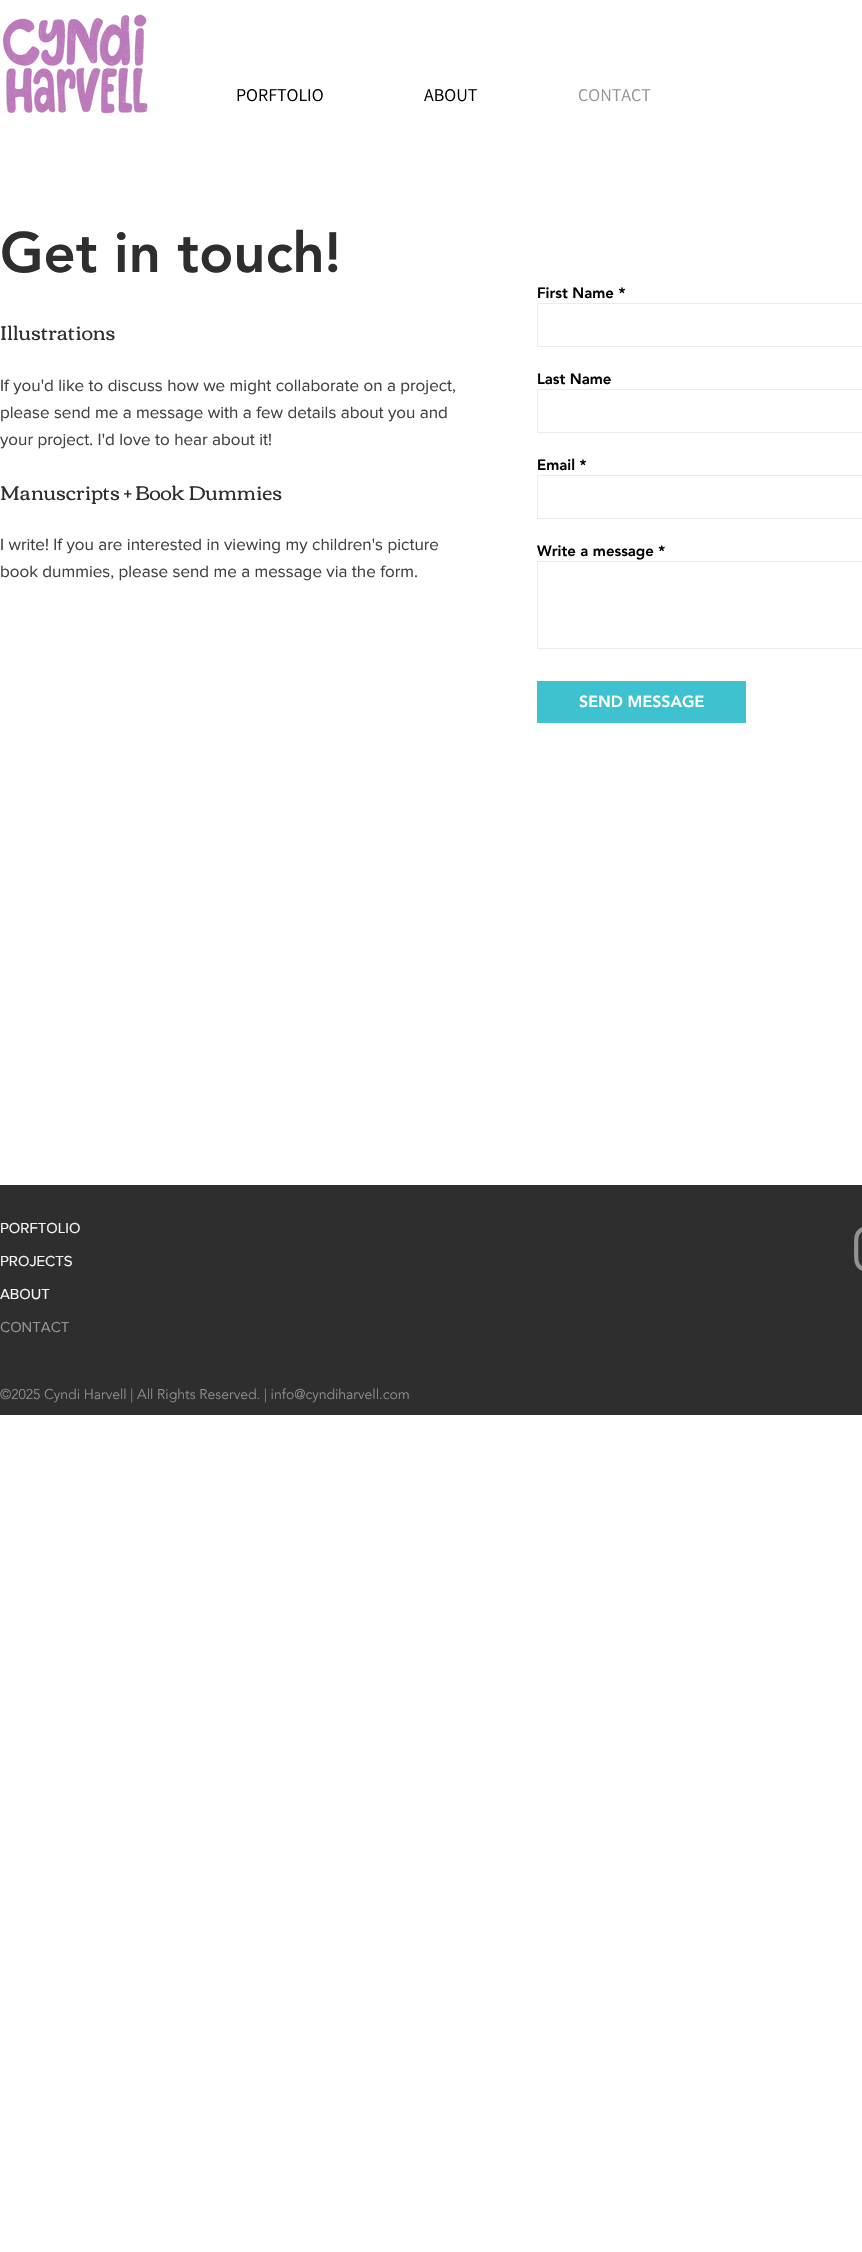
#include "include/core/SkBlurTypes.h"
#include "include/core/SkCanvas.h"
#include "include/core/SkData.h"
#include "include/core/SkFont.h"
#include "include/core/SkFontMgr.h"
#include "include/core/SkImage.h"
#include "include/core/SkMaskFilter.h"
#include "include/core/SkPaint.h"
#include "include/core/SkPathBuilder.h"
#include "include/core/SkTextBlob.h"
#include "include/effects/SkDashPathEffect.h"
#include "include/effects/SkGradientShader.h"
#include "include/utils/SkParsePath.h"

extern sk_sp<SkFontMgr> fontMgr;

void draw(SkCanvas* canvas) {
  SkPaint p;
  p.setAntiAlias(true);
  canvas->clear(SK_ColorWHITE);
  canvas->drawImageRect(SkImages::DeferredFromEncodedData(SkData::MakeFromFileName("images/1.png")), SkRect::MakeLTRB(3, 14, 148, 114), SkSamplingOptions());
  p.setStyle(SkPaint::kStroke_Style);
  p.setStrokeWidth(1);
  p.setColor(SkColorSetRGB(235, 235, 235));
  canvas->drawRect(SkRect::MakeLTRB(537.5f, 303.5f, 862.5f, 346.5f), p);
  canvas->drawRect(SkRect::MakeLTRB(537.5f, 389.5f, 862.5f, 432.5f), p);
  canvas->drawRect(SkRect::MakeLTRB(537.5f, 475.5f, 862.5f, 518.5f), p);
  canvas->drawRect(SkRect::MakeLTRB(537.5f, 561.5f, 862.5f, 648.5f), p);
  p.setStyle(SkPaint::kFill_Style);
  p.setColor(SkColorSetRGB(62, 194, 208));
  canvas->drawRect(SkRect::MakeLTRB(537, 681, 746, 723), p);
  p.setColor(SkColorSetRGB(47, 46, 46));
  canvas->drawRect(SkRect::MakeLTRB(0, 1185, 862, 1415), p);
  canvas->drawImageRect(SkImages::DeferredFromEncodedData(SkData::MakeFromFileName("images/2.png")), SkRect::MakeLTRB(854, 1227, 862, 1271), SkSamplingOptions());
  SkFont font1(fontMgr->matchFamilyStyle("Assistant", SkFontStyle::Normal()), 18);
  font1.setSubpixel(true);
  p.setColor(SK_ColorBLACK);
  canvas->drawString("PORFTOLIO", 236, 101, font1, p);
  canvas->drawString("ABOUT", 424, 101, font1, p);
  p.setColor(SkColorSetRGB(148, 148, 148));
  canvas->drawString("CONTACT", 578, 101, font1, p);
  SkFont font2(fontMgr->matchFamilyStyle("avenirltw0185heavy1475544", SkFontStyle(900, SkFontStyle::kNormal_Width, SkFontStyle::kUpright_Slant)), 56);
  font2.setSubpixel(true);
  p.setColor(SkColorSetRGB(47, 46, 46));
  canvas->drawString("Get in touch!", 0, 272, font2, p);
  SkFont font3(fontMgr->matchFamilyStyle("Corben", SkFontStyle::Normal()), 20);
  font3.setSubpixel(true);
  canvas->drawString("Illustrations", 0, 340, font3, p);
  SkFont font4(fontMgr->matchFamilyStyle("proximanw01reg", SkFontStyle::Normal()), 17);
  font4.setSubpixel(true);
  p.setColor(SkColorSetRGB(65, 65, 65));
  canvas->drawString("If you'd like to discuss how we might collaborate on a project,", 0, 391, font4, p);
  canvas->drawString("please send me a message with a few details about you and", 0, 418, font4, p);
  canvas->drawString("your project. I'd love to hear about it!", 0, 445, font4, p);
  p.setColor(SkColorSetRGB(47, 46, 46));
  canvas->drawString("Manuscripts + Book Dummies", 0, 500, font3, p);
  p.setColor(SkColorSetRGB(65, 65, 65));
  canvas->drawString("I write! If you are interested in viewing my children's picture", 0, 550, font4, p);
  canvas->drawString("book dummies, please send me a message via the form.", 0, 577, font4, p);
  SkFont font5(fontMgr->matchFamilyStyle("avenirltw0185heavy1475544", SkFontStyle(900, SkFontStyle::kNormal_Width, SkFontStyle::kUpright_Slant)), 15);
  font5.setSubpixel(true);
  p.setColor(SK_ColorBLACK);
  canvas->drawString("First Name *", 537, 298, font5, p);
  canvas->drawString("Last Name", 537, 384, font5, p);
  canvas->drawString("Email *", 537, 470, font5, p);
  canvas->drawString("Write a message *", 537, 556, font5, p);
  SkFont font6(fontMgr->matchFamilyStyle("avenirltw0185heavy1475544", SkFontStyle(900, SkFontStyle::kNormal_Width, SkFontStyle::kUpright_Slant)), 16);
  font6.setSubpixel(true);
  p.setColor(SK_ColorWHITE);
  canvas->drawString("SEND MESSAGE", 579, 707, font6, p);
  SkFont font7(fontMgr->matchFamilyStyle("proximanw01reg", SkFontStyle::Normal()), 15);
  font7.setSubpixel(true);
  p.setColor(SkColorSetRGB(246, 246, 246));
  canvas->drawString("PORFTOLIO", 0, 1233, font7, p);
  canvas->drawString("PROJECTS", 0, 1266, font7, p);
  canvas->drawString("ABOUT", 0, 1299, font7, p);
  p.setColor(SkColorSetRGB(148, 148, 148));
  canvas->drawString("CONTACT", 0, 1332, font7, p);
  SkFont font8(fontMgr->matchFamilyStyle("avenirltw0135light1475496", SkFontStyle(300, SkFontStyle::kNormal_Width, SkFontStyle::kUpright_Slant)), 14);
  font8.setSubpixel(true);
  canvas->drawString("©2025 Cyndi Harvell | All Rights Reserved. | info@cyndiharvell.com", 0, 1399, font8, p);
}
